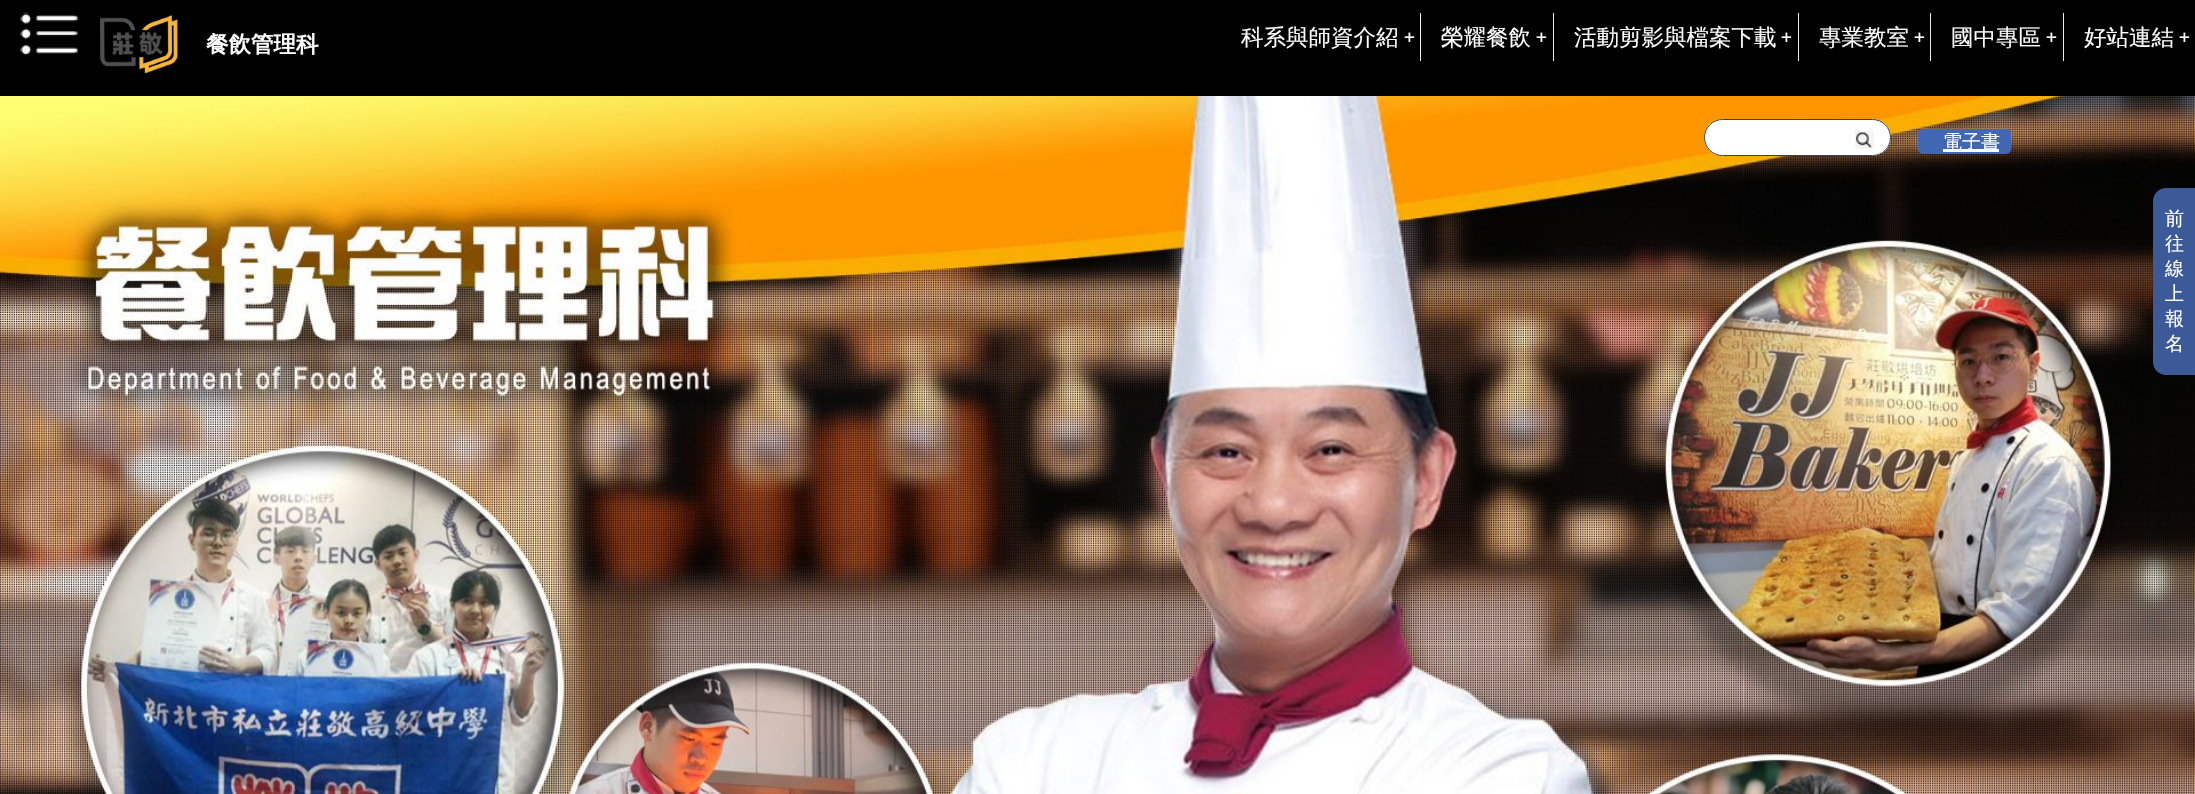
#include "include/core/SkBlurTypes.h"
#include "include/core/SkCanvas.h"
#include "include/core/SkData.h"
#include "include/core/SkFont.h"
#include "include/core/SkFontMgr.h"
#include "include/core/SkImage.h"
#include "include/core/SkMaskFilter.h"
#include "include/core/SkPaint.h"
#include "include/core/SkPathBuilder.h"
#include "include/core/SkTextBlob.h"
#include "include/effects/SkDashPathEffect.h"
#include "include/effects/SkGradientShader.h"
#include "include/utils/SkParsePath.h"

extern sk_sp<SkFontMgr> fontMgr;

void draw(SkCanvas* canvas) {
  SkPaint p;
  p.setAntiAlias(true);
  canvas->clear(SK_ColorWHITE);
  p.setColor(SK_ColorBLACK);
  canvas->drawRect(SkRect::MakeLTRB(0, 0, 2195, 96), p);
  canvas->drawImageRect(SkImages::DeferredFromEncodedData(SkData::MakeFromFileName("images/1.png")), SkRect::MakeLTRB(20, 12, 78, 55), SkSamplingOptions());
  canvas->drawImageRect(SkImages::DeferredFromEncodedData(SkData::MakeFromFileName("images/2.png")), SkRect::MakeLTRB(100, 15, 178, 74), SkSamplingOptions());
  p.setColor(SkColorSetRGB(238, 238, 238));
  canvas->drawRect(SkRect::MakeLTRB(1420, 13, 1421, 61), p);
  canvas->drawRect(SkRect::MakeLTRB(1553, 13, 1554, 61), p);
  canvas->drawRect(SkRect::MakeLTRB(1798, 13, 1799, 61), p);
  canvas->drawRect(SkRect::MakeLTRB(1930, 13, 1931, 61), p);
  canvas->drawRect(SkRect::MakeLTRB(2063, 13, 2064, 61), p);
  canvas->drawImageRect(SkImages::DeferredFromEncodedData(SkData::MakeFromFileName("images/3.png")), SkRect::MakeLTRB(0, 96, 2195, 794), SkSamplingOptions());
  p.setColor(SK_ColorWHITE);
  canvas->drawRoundRect(SkRect::MakeLTRB(1704, 119, 1891, 156), 18.5f, 18.5f, p);
  canvas->drawImageRect(SkImages::DeferredFromEncodedData(SkData::MakeFromFileName("images/4.png")), SkRect::MakeLTRB(1855, 130, 1874, 149), SkSamplingOptions());
  p.setStyle(SkPaint::kStroke_Style);
  p.setStrokeWidth(1);
  p.setColor(SkColorSetRGB(65, 65, 65));
  canvas->drawRoundRect(SkRect::MakeLTRB(1704.5f, 119.5f, 1890.5f, 155.5f), 18, 18, p);
  p.setStyle(SkPaint::kFill_Style);
  p.setColor(SkColorSetRGB(66, 103, 178));
  canvas->drawRoundRect(SkRect::MakeLTRB(1918, 129, 2011, 154), 5, 5, p);
  p.setColor(SK_ColorWHITE);
  canvas->drawRect(SkRect::MakeLTRB(1943, 149, 1999, 152), p);
  p.setColor(SkColorSetRGB(60, 90, 152));
  canvas->drawPath(SkPathBuilder().moveTo(2166, 188).lineTo(2195, 188).lineTo(2195, 375).lineTo(2166, 375).cubicTo(2159, 375, 2153, 369, 2153, 362).lineTo(2153, 201).cubicTo(2153, 194, 2159, 188, 2166, 188).close().detach(), p);
  SkFont font1(fontMgr->matchFamilyStyle("WenQuanYi Zen Hei", SkFontStyle::Bold()), 22.5f);
  font1.setSubpixel(true);
  p.setColor(SK_ColorWHITE);
  canvas->drawString("餐飲管理科", 206, 52, font1, p);
  SkFont font2(fontMgr->matchFamilyStyle("WenQuanYi Zen Hei", SkFontStyle(500, SkFontStyle::kNormal_Width, SkFontStyle::kUpright_Slant)), 22.5f);
  font2.setSubpixel(true);
  canvas->drawString("科系與師資介紹", 1241, 45, font2, p);
  SkFont font3(fontMgr->matchFamilyStyle("DejaVu Sans Mono", SkFontStyle::Normal()), 18);
  font3.setSubpixel(true);
  canvas->drawString("+", 1404, 43, font3, p);
  canvas->drawString("榮耀餐飲", 1441, 45, font2, p);
  canvas->drawString("+", 1536, 43, font3, p);
  canvas->drawString("活動剪影與檔案下載", 1574, 45, font2, p);
  canvas->drawString("+", 1781, 43, font3, p);
  canvas->drawString("專業教室", 1819, 45, font2, p);
  canvas->drawString("+", 1914, 43, font3, p);
  canvas->drawString("國中專區", 1951, 45, font2, p);
  canvas->drawString("+", 2046, 43, font3, p);
  canvas->drawString("好站連結", 2084, 45, font2, p);
  canvas->drawString("+", 2179, 43, font3, p);
  SkFont font4(fontMgr->matchFamilyStyle("WenQuanYi Zen Hei", SkFontStyle(500, SkFontStyle::kNormal_Width, SkFontStyle::kUpright_Slant)), 19);
  font4.setSubpixel(true);
  canvas->drawString("電子書", 1943, 148, font4, p);
  canvas->drawString("前", 2165, 225, font4, p);
  canvas->drawString("往", 2165, 250, font4, p);
  canvas->drawString("線", 2165, 275, font4, p);
  canvas->drawString("上", 2165, 300, font4, p);
  canvas->drawString("報", 2165, 325, font4, p);
  canvas->drawString("名", 2165, 350, font4, p);
}
